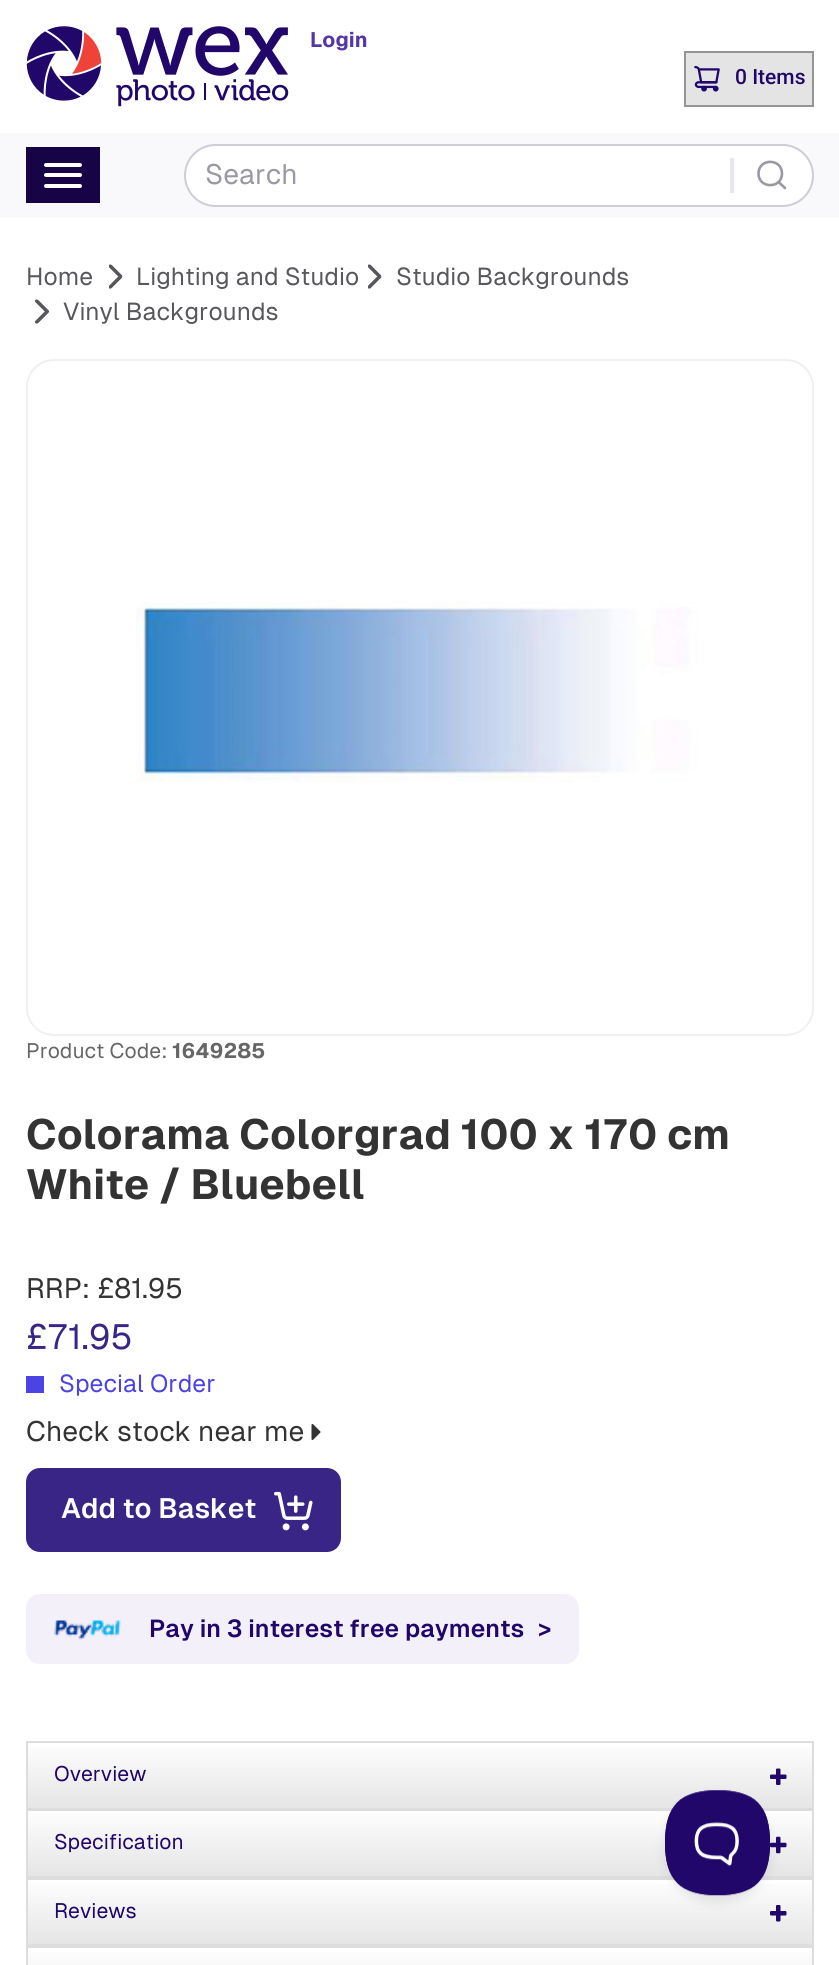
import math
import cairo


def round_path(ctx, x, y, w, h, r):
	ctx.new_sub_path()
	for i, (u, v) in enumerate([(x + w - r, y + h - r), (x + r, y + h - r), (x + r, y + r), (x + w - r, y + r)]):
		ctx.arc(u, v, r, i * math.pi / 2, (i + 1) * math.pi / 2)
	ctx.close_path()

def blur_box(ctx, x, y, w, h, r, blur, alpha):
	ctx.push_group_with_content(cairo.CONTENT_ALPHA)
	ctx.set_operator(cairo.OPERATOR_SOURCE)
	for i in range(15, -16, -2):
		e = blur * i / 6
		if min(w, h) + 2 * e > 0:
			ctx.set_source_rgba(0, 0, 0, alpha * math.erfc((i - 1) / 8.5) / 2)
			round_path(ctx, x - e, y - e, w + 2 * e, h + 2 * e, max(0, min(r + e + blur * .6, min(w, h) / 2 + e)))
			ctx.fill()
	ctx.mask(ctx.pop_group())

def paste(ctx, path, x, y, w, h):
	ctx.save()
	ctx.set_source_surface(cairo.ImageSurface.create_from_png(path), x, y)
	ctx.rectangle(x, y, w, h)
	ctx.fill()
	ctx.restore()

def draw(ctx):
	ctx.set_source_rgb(1, 1, 1)
	ctx.paint()
	paste(ctx, 'media/1.png', 26, 26, 263, 81)
	ctx.select_font_face('Geist', cairo.FONT_SLANT_NORMAL, cairo.FONT_WEIGHT_BOLD)
	ctx.set_font_size(21)
	ctx.set_source_rgb(0.337, 0.212, 0.639)
	ctx.move_to(310, 47)
	ctx.show_text('Login')
	ctx.set_source_rgb(0.976, 0.976, 0.984)
	ctx.rectangle(0, 133, 839, 84)
	ctx.fill()
	ctx.set_source_rgb(1, 1, 1)
	round_path(ctx, 185, 145, 628, 61, 30.5)
	ctx.fill_preserve()
	ctx.set_source_rgb(0.816, 0.8, 0.839)
	ctx.stroke()
	ctx.select_font_face('Geist')
	ctx.set_font_size(28)
	ctx.set_source_rgb(0.604, 0.596, 0.627)
	ctx.move_to(205, 184)
	ctx.show_text('Search')
	ctx.set_source_rgb(0.914, 0.902, 0.941)
	ctx.rectangle(730, 158, 4, 35)
	ctx.fill()
	ctx.new_path()
	ctx.move_to(785, 188)
	ctx.line_to(778.5, 182)
	ctx.move_to(782, 173.5)
	ctx.curve_to(782, 189, 758.5, 189, 758.5, 173.5)
	ctx.curve_to(758.5, 158, 782, 158, 782, 173.5)
	ctx.close_path()
	ctx.set_source_rgb(0.604, 0.596, 0.627)
	ctx.set_line_width(2.6)
	ctx.set_line_cap(cairo.LINE_CAP_ROUND)
	ctx.set_line_join(cairo.LINE_JOIN_ROUND)
	ctx.stroke()
	ctx.set_source_rgb(0.894, 0.894, 0.894)
	ctx.rectangle(685, 52, 128, 54)
	ctx.fill_preserve()
	ctx.set_source_rgb(0.584, 0.584, 0.584)
	ctx.set_line_width(2)
	ctx.set_line_cap(cairo.LINE_CAP_BUTT)
	ctx.set_line_join(cairo.LINE_JOIN_MITER)
	ctx.stroke()
	paste(ctx, 'media/2.png', 694, 65, 26, 27)
	ctx.select_font_face('Roboto Medium')
	ctx.set_font_size(21)
	ctx.set_source_rgb(0.129, 0.027, 0.416)
	ctx.move_to(735, 84)
	ctx.show_text('0 Items')
	ctx.set_source_rgb(0.086, 0.016, 0.275)
	ctx.rectangle(26, 147, 74, 56)
	ctx.fill()
	ctx.set_source_rgb(1, 1, 1)
	round_path(ctx, 44, 163, 38, 4, 2)
	ctx.fill()
	round_path(ctx, 44, 173, 38, 4, 2)
	ctx.fill()
	round_path(ctx, 44, 184, 38, 4, 2)
	ctx.fill()
	ctx.select_font_face('Geist')
	ctx.set_font_size(24.5)
	ctx.set_source_rgb(0.341, 0.341, 0.361)
	ctx.move_to(26, 285)
	ctx.show_text('Home')
	paste(ctx, 'media/3.png', 109, 264, 14, 25)
	ctx.move_to(136, 285)
	ctx.show_text('Lighting and Studio')
	paste(ctx, 'media/3.png', 368, 264, 14, 25)
	ctx.move_to(396, 285)
	ctx.show_text('Studio Backgrounds')
	paste(ctx, 'media/4.png', 35, 299, 14, 25)
	ctx.move_to(63, 320)
	ctx.show_text('Vinyl Backgrounds')
	round_path(ctx, 27, 360, 786, 675, 27)
	ctx.set_source_rgb(0.941, 0.941, 0.941)
	ctx.stroke()
	paste(ctx, 'media/5.png', 136, 601, 562, 181)
	ctx.set_font_size(21)
	ctx.set_source_rgb(0.4, 0.4, 0.4)
	ctx.move_to(26, 1058)
	ctx.show_text('Product Code:')
	ctx.select_font_face('Geist', cairo.FONT_SLANT_NORMAL, cairo.FONT_WEIGHT_BOLD)
	ctx.move_to(172, 1058)
	ctx.show_text('1649285')
	ctx.set_font_size(42)
	ctx.set_source_rgb(0.2, 0.2, 0.2)
	ctx.move_to(26, 1149)
	ctx.show_text('Colorama Colorgrad 100 x 170 cm')
	ctx.move_to(26, 1199)
	ctx.show_text('White / Bluebell')
	ctx.select_font_face('Geist')
	ctx.set_font_size(28)
	ctx.move_to(26, 1298)
	ctx.show_text('RRP: £81.95')
	ctx.set_font_size(35)
	ctx.set_source_rgb(0.22, 0.145, 0.525)
	ctx.move_to(26, 1349)
	ctx.show_text('£71.95')
	ctx.set_source_rgb(0.294, 0.263, 0.89)
	ctx.rectangle(26, 1376, 18, 17)
	ctx.fill()
	ctx.set_font_size(24.5)
	ctx.move_to(59, 1392)
	ctx.show_text('Special Order')
	ctx.set_font_size(28)
	ctx.set_source_rgb(0.2, 0.2, 0.2)
	ctx.move_to(26, 1441)
	ctx.show_text('Check stock near me')
	paste(ctx, 'media/6.png', 311, 1424, 10, 16)
	ctx.set_source_rgb(0.22, 0.145, 0.525)
	round_path(ctx, 26, 1468, 315, 84, 14)
	ctx.fill()
	ctx.select_font_face('Geist SemiBold')
	ctx.set_source_rgb(1, 1, 1)
	ctx.move_to(61, 1518)
	ctx.show_text('Add to Basket')
	paste(ctx, 'media/7.png', 274, 1491, 39, 40)
	ctx.set_source_rgb(0.953, 0.941, 0.98)
	round_path(ctx, 26, 1594, 553, 70, 14)
	ctx.fill()
	paste(ctx, 'media/8.png', 54, 1620, 67, 20)
	ctx.set_font_size(24.5)
	ctx.set_source_rgb(0.129, 0.027, 0.416)
	ctx.move_to(149, 1637)
	ctx.show_text('Pay in 3 interest free payments')
	ctx.move_to(538, 1637)
	ctx.show_text('>')
	ctx.rectangle(27, 1742, 786, 67)
	ctx.set_source_rgb(0.867, 0.867, 0.867)
	ctx.stroke()
	gradient = cairo.LinearGradient(420, 1743, 420, 1808)
	gradient.add_color_stop_rgba(0, 0.996, 0.996, 0.996, 1)
	gradient.add_color_stop_rgba(1, 0.898, 0.898, 0.898, 1)
	ctx.set_source(gradient)
	ctx.rectangle(28, 1747, 784, 61)
	ctx.fill()
	ctx.select_font_face('Geist')
	ctx.set_font_size(21)
	ctx.set_source_rgb(0.129, 0.027, 0.416)
	ctx.move_to(54, 1781)
	ctx.show_text('Overview')
	paste(ctx, 'media/9.png', 770, 1768, 17, 17)
	ctx.rectangle(27, 1811, 786, 66)
	ctx.set_source_rgb(0.867, 0.867, 0.867)
	ctx.stroke()
	gradient = cairo.LinearGradient(420, 1811, 420, 1876)
	gradient.add_color_stop_rgba(0, 0.996, 0.996, 0.996, 1)
	gradient.add_color_stop_rgba(1, 0.898, 0.898, 0.898, 1)
	ctx.set_source(gradient)
	ctx.rectangle(28, 1811, 784, 65)
	ctx.fill()
	ctx.set_source_rgb(0.129, 0.027, 0.416)
	ctx.move_to(54, 1849)
	ctx.show_text('Specification')
	paste(ctx, 'media/10.png', 770, 1836, 17, 18)
	ctx.rectangle(27, 1879, 786, 66)
	ctx.set_source_rgb(0.867, 0.867, 0.867)
	ctx.stroke()
	gradient = cairo.LinearGradient(420, 1880, 420, 1944)
	gradient.add_color_stop_rgba(0, 0.996, 0.996, 0.996, 1)
	gradient.add_color_stop_rgba(1, 0.898, 0.898, 0.898, 1)
	ctx.set_source(gradient)
	ctx.rectangle(28, 1884, 784, 60)
	ctx.fill()
	ctx.set_source_rgb(0.129, 0.027, 0.416)
	ctx.move_to(54, 1918)
	ctx.show_text('Reviews')
	paste(ctx, 'media/11.png', 770, 1905, 17, 17)
	ctx.rectangle(27, 1947, 786, 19)
	ctx.set_source_rgb(0.867, 0.867, 0.867)
	ctx.stroke()
	gradient = cairo.LinearGradient(420, 1948, 420, 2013)
	gradient.add_color_stop_rgba(0, 0.996, 0.996, 0.996, 1)
	gradient.add_color_stop_rgba(1, 0.898, 0.898, 0.898, 1)
	ctx.set_source(gradient)
	ctx.rectangle(28, 1952, 784, 13)
	ctx.fill()
	ctx.set_source_rgb(0, 0, 0)
	blur_box(ctx, 665, 1797, 105, 105, 52.5, 6, 0.1)
	paste(ctx, 'media/12.png', 665, 1790, 105, 106)


surface = cairo.ImageSurface(cairo.FORMAT_RGB24, 839, 1965)
ctx = cairo.Context(surface)
options = cairo.FontOptions()
options.set_hint_metrics(cairo.HINT_METRICS_OFF)
options.set_hint_style(cairo.HINT_STYLE_NONE)
ctx.set_font_options(options)
ctx.set_miter_limit(4)
draw(ctx)
surface.write_to_png('image.png')
